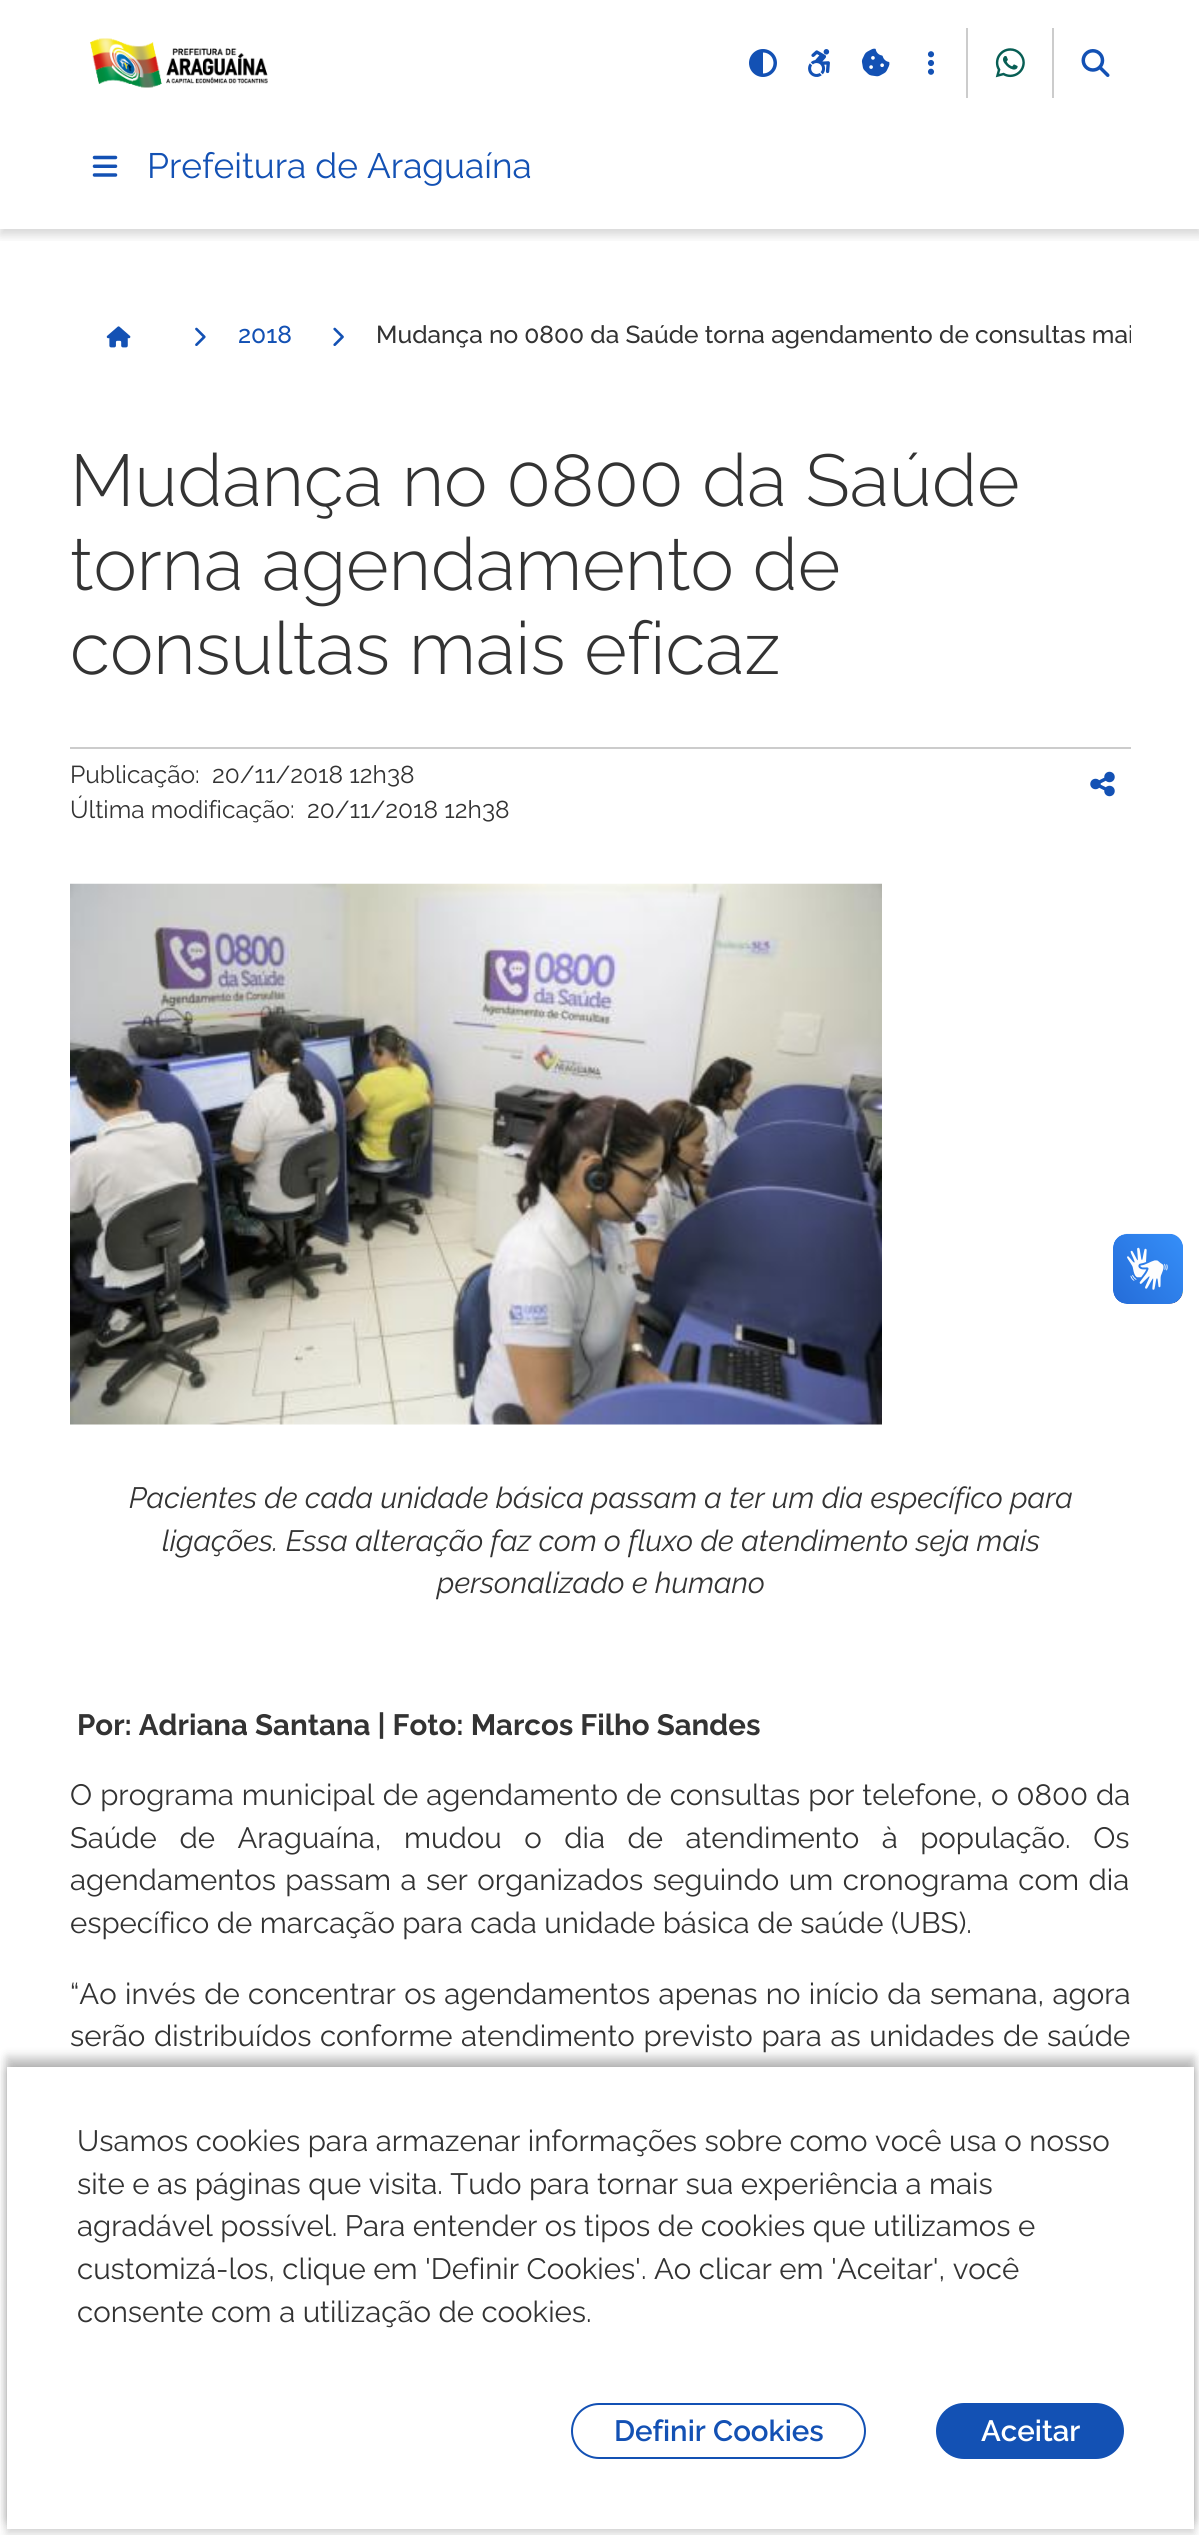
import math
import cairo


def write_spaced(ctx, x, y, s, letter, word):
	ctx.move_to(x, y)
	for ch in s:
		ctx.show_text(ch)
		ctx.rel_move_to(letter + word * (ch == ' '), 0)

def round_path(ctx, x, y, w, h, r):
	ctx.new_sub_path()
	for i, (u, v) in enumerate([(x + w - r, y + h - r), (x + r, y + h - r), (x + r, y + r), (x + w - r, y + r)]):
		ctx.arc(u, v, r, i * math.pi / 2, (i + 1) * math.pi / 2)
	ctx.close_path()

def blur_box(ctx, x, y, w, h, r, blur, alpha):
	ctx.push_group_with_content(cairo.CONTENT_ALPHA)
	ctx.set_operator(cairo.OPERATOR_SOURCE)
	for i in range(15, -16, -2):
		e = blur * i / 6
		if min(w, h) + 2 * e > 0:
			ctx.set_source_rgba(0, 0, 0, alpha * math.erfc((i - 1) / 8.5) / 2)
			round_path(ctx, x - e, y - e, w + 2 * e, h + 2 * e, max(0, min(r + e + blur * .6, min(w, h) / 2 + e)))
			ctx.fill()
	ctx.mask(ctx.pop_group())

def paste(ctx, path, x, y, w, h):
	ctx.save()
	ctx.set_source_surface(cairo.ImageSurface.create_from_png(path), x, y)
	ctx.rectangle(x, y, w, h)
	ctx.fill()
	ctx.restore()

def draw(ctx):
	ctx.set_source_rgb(1, 1, 1)
	ctx.paint()
	ctx.save()
	ctx.rectangle(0, 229, 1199, 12)
	ctx.clip()
	ctx.set_source_rgb(0, 0, 0)
	blur_box(ctx, 0, 5, 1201, 230, 0, 5, 0.16)
	ctx.restore()
	paste(ctx, 'media/1.png', 90, 38, 178, 50)
	paste(ctx, 'media/2.png', 749, 49, 28, 28)
	paste(ctx, 'media/3.png', 808, 49, 22, 28)
	paste(ctx, 'media/4.png', 861, 48, 29, 29)
	paste(ctx, 'media/5.png', 927, 51, 8, 24)
	ctx.set_source_rgb(0.8, 0.8, 0.8)
	ctx.rectangle(966, 28, 2, 70)
	ctx.fill()
	paste(ctx, 'media/6.png', 995, 48, 30, 30)
	ctx.rectangle(1052, 28, 2, 70)
	ctx.fill()
	paste(ctx, 'media/7.png', 1081, 49, 29, 28)
	paste(ctx, 'media/8.png', 92, 155, 26, 22)
	ctx.select_font_face('Raleway')
	ctx.set_font_size(35.25)
	ctx.set_source_rgb(0.075, 0.318, 0.706)
	ctx.move_to(147, 178)
	ctx.show_text('Prefeitura de Araguaína')
	paste(ctx, 'media/9.png', 106, 326, 25, 22)
	paste(ctx, 'media/10.png', 195, 327, 11, 19)
	ctx.select_font_face('Raleway Medium')
	ctx.set_font_size(24.5)
	ctx.move_to(238, 343)
	ctx.show_text('2018')
	paste(ctx, 'media/11.png', 333, 327, 11, 19)
	ctx.save()
	ctx.rectangle(70, 285, 1061, 98)
	ctx.clip()
	ctx.set_source_rgb(0.2, 0.2, 0.2)
	ctx.move_to(376, 343)
	ctx.show_text('Mudança no 0800 da Saúde torna agendamento de consultas mai')
	ctx.restore()
	ctx.set_source_rgb(0.8, 0.8, 0.8)
	ctx.rectangle(70, 747, 1061, 2)
	ctx.fill()
	ctx.select_font_face('Raleway Light')
	ctx.set_font_size(73.2)
	ctx.set_source_rgb(0.2, 0.2, 0.2)
	for x, y, s in [
		(70, 506, 'Mudança no 0800 da Saúde'),
		(70, 590, 'torna agendamento de'),
		(70, 674, 'consultas mais eficaz'),
	]:
		ctx.move_to(x, y)
		ctx.show_text(s)
	ctx.select_font_face('Raleway')
	ctx.set_font_size(24.5)
	for x, y, s in [
		(70, 783, 'Publicação:'),
		(212, 783, '20/11/2018 12h38'),
		(70, 818, 'Última modificação:'),
		(307, 818, '20/11/2018 12h38'),
	]:
		ctx.move_to(x, y)
		ctx.show_text(s)
	paste(ctx, 'media/12.png', 1090, 771, 25, 26)
	paste(ctx, 'media/13.png', 1113, 1233, 70, 71)
	paste(ctx, 'media/14.png', 1113, 1234, 70, 70)
	paste(ctx, 'media/15.png', 70, 883, 812, 542)
	ctx.select_font_face('Raleway', cairo.FONT_SLANT_ITALIC)
	ctx.set_font_size(29.4)
	for x, y, s in [
		(129, 1508, 'Pacientes de cada unidade básica passam a ter um dia específico para'),
		(162, 1551, 'ligações. Essa alteração faz com o fluxo de atendimento seja mais'),
		(437, 1593, 'personalizado e humano'),
	]:
		ctx.move_to(x, y)
		ctx.show_text(s)
	ctx.select_font_face('Raleway', cairo.FONT_SLANT_NORMAL, cairo.FONT_WEIGHT_BOLD)
	ctx.move_to(77, 1735)
	ctx.show_text('Por: Adriana Santana | Foto: Marcos Filho Sandes')
	ctx.select_font_face('Raleway')
	write_spaced(ctx, 70, 1805, 'O programa municipal de agendamento de consultas por telefone, o 0800 da', 0, 0.6)
	write_spaced(ctx, 70, 1848, 'Saúde de Araguaína, mudou o dia de atendimento à população. Os', 0, 15)
	write_spaced(ctx, 70, 1890, 'agendamentos passam a ser organizados seguindo um cronograma com dia', 0, 2)
	ctx.move_to(70, 1933)
	ctx.show_text('específico de marcação para cada unidade básica de saúde (UBS).')
	write_spaced(ctx, 70, 2004, '“Ao invés de concentrar os agendamentos apenas no início da semana, agora', 0, 0.9)
	write_spaced(ctx, 70, 2046, 'serão distribuídos conforme atendimento previsto para as unidades de saúde', 0, 1.1)
	ctx.set_source_rgb(0, 0, 0)
	blur_box(ctx, 7, 2056, 1187, 462, 0, 5, 0.16)
	blur_box(ctx, 7, 2072, 1187, 462, 0, 5, 0.16)
	blur_box(ctx, 7, 2062, 1187, 462, 0, 5, 0.16)
	ctx.set_source_rgb(1, 1, 1)
	ctx.rectangle(7, 2067, 1187, 462)
	ctx.fill()
	ctx.set_source_rgb(0.2, 0.2, 0.2)
	for x, y, s in [
		(77, 2151, 'Usamos cookies para armazenar informações sobre como você usa o nosso'),
		(77, 2194, 'site e as páginas que visita. Tudo para tornar sua experiência a mais'),
		(77, 2236, 'agradável possível. Para entender os tipos de cookies que utilizamos e'),
		(77, 2279, 'customizá-los, clique em \'Definir Cookies\'. Ao clicar em \'Aceitar\', você'),
		(77, 2322, 'consente com a utilização de cookies.'),
	]:
		ctx.move_to(x, y)
		ctx.show_text(s)
	round_path(ctx, 572, 2404, 293, 54, 27)
	ctx.set_source_rgb(0.075, 0.318, 0.706)
	ctx.stroke()
	ctx.select_font_face('Raleway SemiBold')
	ctx.move_to(614, 2441)
	ctx.show_text('Definir Cookies')
	round_path(ctx, 936, 2403, 188, 56, 28)
	ctx.fill()
	ctx.set_source_rgb(1, 1, 1)
	ctx.move_to(981, 2441)
	ctx.show_text('Aceitar')


surface = cairo.ImageSurface(cairo.FORMAT_RGB24, 1199, 2535)
ctx = cairo.Context(surface)
options = cairo.FontOptions()
options.set_hint_metrics(cairo.HINT_METRICS_OFF)
options.set_hint_style(cairo.HINT_STYLE_NONE)
ctx.set_font_options(options)
ctx.set_miter_limit(4)
draw(ctx)
surface.write_to_png('image.png')
